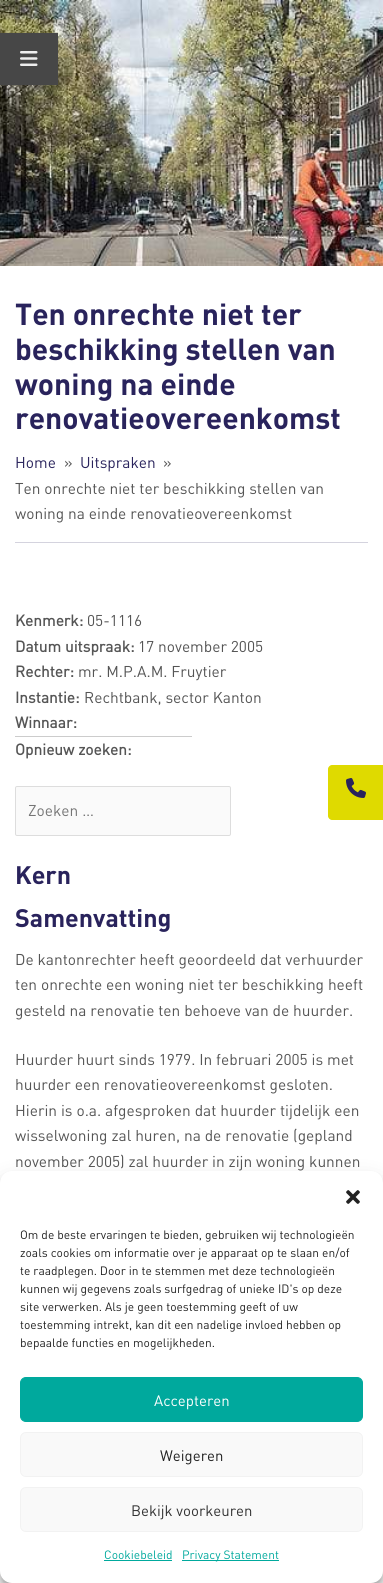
import math
import cairo


def round_path(ctx, x, y, w, h, r):
	ctx.new_sub_path()
	for i, (u, v) in enumerate([(x + w - r, y + h - r), (x + r, y + h - r), (x + r, y + r), (x + w - r, y + r)]):
		ctx.arc(u, v, r, i * math.pi / 2, (i + 1) * math.pi / 2)
	ctx.close_path()

def blur_box(ctx, x, y, w, h, r, blur, alpha):
	ctx.push_group_with_content(cairo.CONTENT_ALPHA)
	ctx.set_operator(cairo.OPERATOR_SOURCE)
	for i in range(15, -16, -2):
		e = blur * i / 6
		if min(w, h) + 2 * e > 0:
			ctx.set_source_rgba(0, 0, 0, alpha * math.erfc((i - 1) / 8.5) / 2)
			round_path(ctx, x - e, y - e, w + 2 * e, h + 2 * e, max(0, min(r + e + blur * .6, min(w, h) / 2 + e)))
			ctx.fill()
	ctx.mask(ctx.pop_group())

def paste(ctx, path, x, y, w, h):
	ctx.save()
	ctx.set_source_surface(cairo.ImageSurface.create_from_png(path), x, y)
	ctx.rectangle(x, y, w, h)
	ctx.fill()
	ctx.restore()

def draw(ctx):
	ctx.set_source_rgb(1, 1, 1)
	ctx.paint()
	paste(ctx, 'media/2.png', 0, 0, 383, 266)
	ctx.set_source_rgb(0.278, 0.278, 0.278)
	ctx.rectangle(0, 33, 58, 52)
	ctx.fill()
	paste(ctx, 'media/1.png', 20, 51, 18, 15)
	ctx.select_font_face('DIN', cairo.FONT_SLANT_NORMAL, cairo.FONT_WEIGHT_BOLD)
	ctx.set_font_size(30)
	ctx.set_source_rgb(0.161, 0.137, 0.361)
	for x, y, s in [
		(15, 325, 'Ten onrechte niet ter'),
		(15, 360, 'beschikking stellen van'),
		(15, 395, 'woning na einde'),
		(15, 429, 'renovatieovereenkomst'),
	]:
		ctx.move_to(x, y)
		ctx.show_text(s)
	ctx.select_font_face('DIN')
	ctx.set_font_size(15.5)
	ctx.move_to(15, 468)
	ctx.show_text('Home')
	ctx.set_source_rgb(0.333, 0.333, 0.333)
	ctx.move_to(64, 468)
	ctx.show_text('»')
	ctx.set_source_rgb(0.161, 0.137, 0.361)
	ctx.move_to(80, 468)
	ctx.show_text('Uitspraken')
	ctx.set_source_rgb(0.333, 0.333, 0.333)
	for x, y, s in [
		(163, 468, '»'),
		(15, 494, 'Ten onrechte niet ter beschikking stellen van'),
		(15, 519, 'woning na einde renovatieovereenkomst'),
	]:
		ctx.move_to(x, y)
		ctx.show_text(s)
	ctx.set_source_rgb(0.831, 0.827, 0.871)
	ctx.rectangle(15, 542, 353, 1)
	ctx.fill()
	ctx.select_font_face('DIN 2', cairo.FONT_SLANT_NORMAL, cairo.FONT_WEIGHT_BOLD)
	ctx.set_source_rgb(0.333, 0.333, 0.333)
	ctx.move_to(15, 626)
	ctx.show_text('Kenmerk:')
	ctx.select_font_face('DIN')
	ctx.move_to(87, 626)
	ctx.show_text('05-1116')
	ctx.select_font_face('DIN 2', cairo.FONT_SLANT_NORMAL, cairo.FONT_WEIGHT_BOLD)
	ctx.move_to(15, 652)
	ctx.show_text('Datum uitspraak:')
	ctx.select_font_face('DIN')
	ctx.move_to(138, 652)
	ctx.show_text('17 november 2005')
	ctx.select_font_face('DIN 2', cairo.FONT_SLANT_NORMAL, cairo.FONT_WEIGHT_BOLD)
	ctx.move_to(15, 677)
	ctx.show_text('Rechter:')
	ctx.select_font_face('DIN')
	ctx.move_to(78, 677)
	ctx.show_text('mr. M.P.A.M. Fruytier')
	ctx.select_font_face('DIN 2', cairo.FONT_SLANT_NORMAL, cairo.FONT_WEIGHT_BOLD)
	ctx.move_to(15, 703)
	ctx.show_text('Instantie:')
	ctx.select_font_face('DIN')
	ctx.move_to(84, 703)
	ctx.show_text('Rechtbank, sector Kanton')
	ctx.select_font_face('DIN 2', cairo.FONT_SLANT_NORMAL, cairo.FONT_WEIGHT_BOLD)
	ctx.move_to(15, 728)
	ctx.show_text('Winnaar:')
	ctx.set_source_rgb(0.8, 0.8, 0.8)
	ctx.rectangle(15, 736, 177, 1)
	ctx.fill()
	ctx.set_source_rgb(0.333, 0.333, 0.333)
	ctx.move_to(15, 755)
	ctx.show_text('Opnieuw zoeken:')
	ctx.set_source_rgb(0.98, 0.98, 0.98)
	round_path(ctx, 15.5, 786.5, 215, 49, 1.5)
	ctx.fill_preserve()
	ctx.set_source_rgb(0.867, 0.867, 0.867)
	ctx.set_line_width(1)
	ctx.stroke()
	ctx.select_font_face('DIN')
	ctx.set_source_rgb(0.459, 0.459, 0.459)
	ctx.move_to(28, 816)
	ctx.show_text('Zoeken …')
	ctx.select_font_face('DIN', cairo.FONT_SLANT_NORMAL, cairo.FONT_WEIGHT_BOLD)
	ctx.set_font_size(25)
	ctx.set_source_rgb(0.161, 0.137, 0.361)
	ctx.move_to(15, 884)
	ctx.show_text('Kern')
	ctx.move_to(15, 927)
	ctx.show_text('Samenvatting')
	ctx.select_font_face('DIN')
	ctx.set_font_size(15.5)
	ctx.set_source_rgb(0.333, 0.333, 0.333)
	for x, y, s in [
		(15, 965, 'De kantonrechter heeft geoordeeld dat verhuurder'),
		(15, 990, 'ten onrechte een woning niet ter beschikking heeft'),
		(15, 1016, 'gesteld na renovatie ten behoeve van de huurder.'),
		(15, 1065, 'Huurder huurt sinds 1979. In februari 2005 is met'),
		(15, 1090, 'huurder een renovatieovereenkomst gesloten.'),
		(15, 1116, 'Hierin is o.a. afgesproken dat huurder tijdelijk een'),
		(15, 1141, 'wisselwoning zal huren, na de renovatie (gepland'),
		(15, 1167, 'november 2005) zal huurder in zijn woning kunnen'),
	]:
		ctx.move_to(x, y)
		ctx.show_text(s)
	ctx.set_source_rgb(0.875, 0.855, 0)
	ctx.new_path()
	ctx.move_to(332, 765)
	ctx.line_to(383, 765)
	ctx.line_to(383, 820)
	ctx.line_to(332, 820)
	ctx.curve_to(330, 820, 328, 818, 328, 816)
	ctx.line_to(328, 769)
	ctx.curve_to(328, 767, 330, 765, 332, 765)
	ctx.close_path()
	ctx.fill()
	paste(ctx, 'media/3.png', 346, 778, 20, 20)
	ctx.set_source_rgb(0, 0, 0)
	blur_box(ctx, 0, 1177, 383, 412, 12, 3, 0.23)
	blur_box(ctx, 0, 1181, 383, 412, 12, 10, 0.19)
	ctx.set_source_rgb(1, 1, 1)
	round_path(ctx, 0, 1171, 383, 412, 12)
	ctx.fill()
	paste(ctx, 'media/4.png', 346, 1190, 14, 14)
	ctx.set_font_size(12)
	ctx.set_source_rgb(0.133, 0.133, 0.133)
	for x, y, s in [
		(20, 1239, 'Om de beste ervaringen te bieden, gebruiken wij technologieën'),
		(20, 1257, 'zoals cookies om informatie over je apparaat op te slaan en/of'),
		(20, 1275, 'te raadplegen. Door in te stemmen met deze technologieën'),
		(20, 1293, 'kunnen wij gegevens zoals surfgedrag of unieke ID\'s op deze'),
		(20, 1311, 'site verwerken. Als je geen toestemming geeft of uw'),
		(20, 1329, 'toestemming intrekt, kan dit een nadelige invloed hebben op'),
		(20, 1347, 'bepaalde functies en mogelijkheden.'),
	]:
		ctx.move_to(x, y)
		ctx.show_text(s)
	ctx.set_source_rgb(0, 0.663, 0.616)
	round_path(ctx, 20.5, 1377.5, 342, 44, 5.5)
	ctx.fill_preserve()
	ctx.stroke()
	ctx.set_font_size(15)
	ctx.set_source_rgb(1, 1, 1)
	ctx.move_to(154, 1406)
	ctx.show_text('Accepteren')
	ctx.set_source_rgb(0.976, 0.976, 0.976)
	round_path(ctx, 20.5, 1432.5, 342, 44, 5.5)
	ctx.fill_preserve()
	ctx.set_source_rgb(0.949, 0.949, 0.949)
	ctx.stroke()
	ctx.set_source_rgb(0.133, 0.133, 0.133)
	ctx.move_to(160, 1461)
	ctx.show_text('Weigeren')
	ctx.set_source_rgb(0.976, 0.976, 0.976)
	round_path(ctx, 20.5, 1487.5, 342, 44, 5.5)
	ctx.fill_preserve()
	ctx.set_source_rgb(0.949, 0.949, 0.949)
	ctx.stroke()
	ctx.set_source_rgb(0.2, 0.2, 0.2)
	ctx.move_to(131, 1516)
	ctx.show_text('Bekijk voorkeuren')
	ctx.set_font_size(12)
	ctx.set_source_rgb(0, 0.663, 0.616)
	ctx.move_to(104, 1559)
	ctx.show_text('Cookiebeleid')
	ctx.rectangle(104, 1560, 68, 1)
	ctx.fill()
	ctx.rectangle(182, 1560, 97, 1)
	ctx.fill()
	ctx.move_to(182, 1559)
	ctx.show_text('Privacy Statement')


surface = cairo.ImageSurface(cairo.FORMAT_RGB24, 383, 1583)
ctx = cairo.Context(surface)
options = cairo.FontOptions()
options.set_hint_metrics(cairo.HINT_METRICS_OFF)
options.set_hint_style(cairo.HINT_STYLE_NONE)
ctx.set_font_options(options)
ctx.set_miter_limit(4)
draw(ctx)
surface.write_to_png('image.png')
